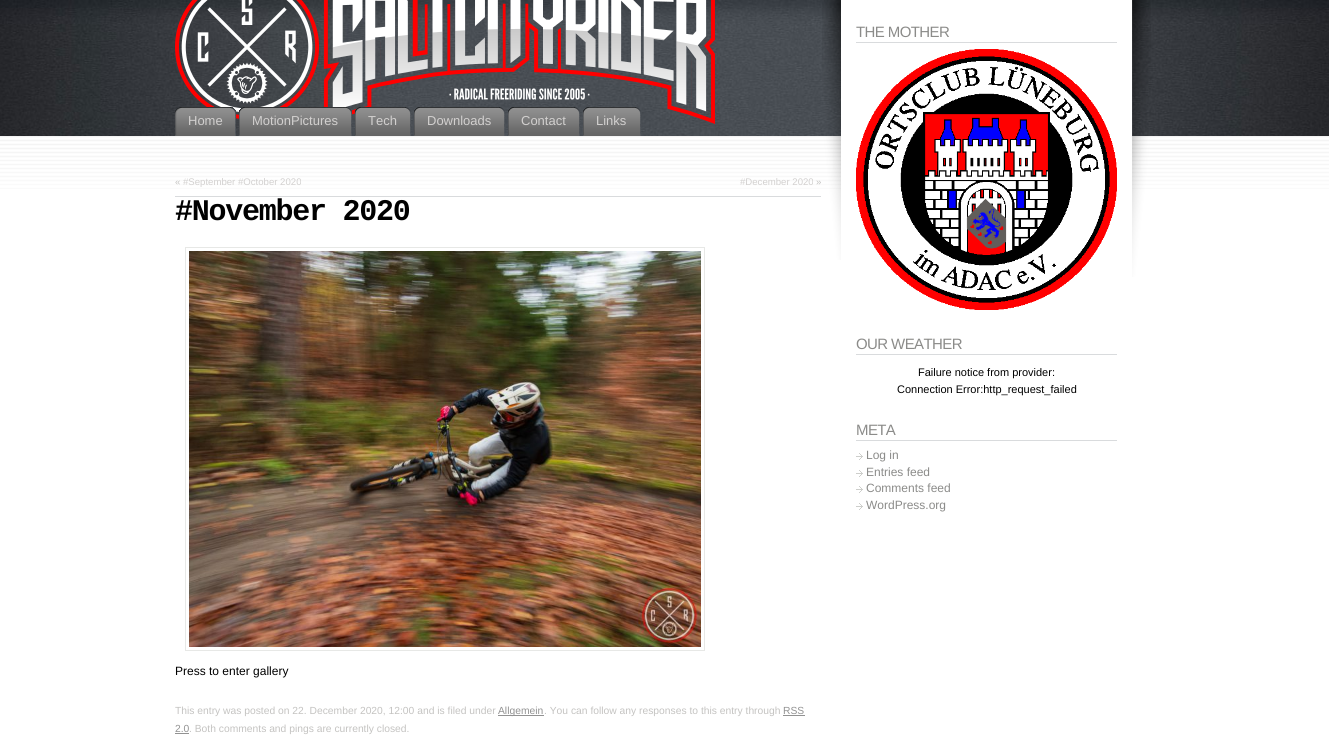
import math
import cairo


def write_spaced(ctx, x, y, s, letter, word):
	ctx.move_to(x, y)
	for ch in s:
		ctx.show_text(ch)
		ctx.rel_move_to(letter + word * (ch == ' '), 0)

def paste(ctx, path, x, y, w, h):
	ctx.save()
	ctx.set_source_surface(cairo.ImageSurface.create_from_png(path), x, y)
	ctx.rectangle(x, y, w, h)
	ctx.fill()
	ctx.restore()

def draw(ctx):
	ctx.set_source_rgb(1, 1, 1)
	ctx.paint()
	paste(ctx, 'media/1.png', 0, 136, 1329, 53)
	paste(ctx, 'media/2.png', 0, 0, 1329, 136)
	paste(ctx, 'media/3.png', 175, 0, 540, 124)
	paste(ctx, 'media/4.png', 175, 107, 11, 29)
	paste(ctx, 'media/5.png', 186, 107, 50, 29)
	ctx.select_font_face('Liberation Sans')
	ctx.set_font_size(13)
	ctx.set_source_rgb(0.824, 0.816, 0.812)
	ctx.move_to(188, 125)
	ctx.show_text('Home')
	paste(ctx, 'media/6.png', 239, 107, 10, 29)
	paste(ctx, 'media/7.png', 249, 107, 103, 29)
	ctx.move_to(252, 125)
	ctx.show_text('MotionPictures')
	paste(ctx, 'media/8.png', 355, 107, 10, 29)
	paste(ctx, 'media/9.png', 365, 107, 46, 29)
	ctx.move_to(368, 125)
	ctx.show_text('Tech')
	paste(ctx, 'media/10.png', 414, 107, 10, 29)
	paste(ctx, 'media/11.png', 424, 107, 81, 29)
	ctx.move_to(427, 125)
	ctx.show_text('Downloads')
	paste(ctx, 'media/12.png', 508, 107, 10, 29)
	paste(ctx, 'media/13.png', 518, 107, 62, 29)
	ctx.move_to(521, 125)
	ctx.show_text('Contact')
	paste(ctx, 'media/14.png', 583, 107, 10, 29)
	paste(ctx, 'media/15.png', 593, 107, 48, 29)
	ctx.move_to(596, 125)
	ctx.show_text('Links')
	ctx.set_font_size(9.6)
	ctx.set_source_rgb(0.769, 0.765, 0.757)
	ctx.move_to(175, 185)
	ctx.show_text('«')
	ctx.set_source_rgb(0.824, 0.816, 0.812)
	ctx.move_to(183, 185)
	ctx.show_text('#September #October 2020')
	ctx.move_to(740, 185)
	ctx.show_text('#December 2020')
	ctx.set_source_rgb(0.769, 0.765, 0.757)
	ctx.move_to(816, 185)
	ctx.show_text('»')
	ctx.set_source_rgb(0.851, 0.859, 0.867)
	ctx.rectangle(175, 196, 646, 1)
	ctx.fill()
	ctx.select_font_face('Liberation Mono', cairo.FONT_SLANT_NORMAL, cairo.FONT_WEIGHT_BOLD)
	ctx.set_font_size(30)
	ctx.set_source_rgb(0, 0, 0)
	write_spaced(ctx, 175, 220, '#November 2020', -1.25, 0)
	ctx.rectangle(185.5, 247.5, 519, 403)
	ctx.set_source_rgb(0.906, 0.91, 0.902)
	ctx.set_line_width(1)
	ctx.stroke()
	paste(ctx, 'media/16.png', 189, 251, 512, 396)
	ctx.select_font_face('Liberation Sans')
	ctx.set_font_size(12)
	ctx.set_source_rgb(0, 0, 0)
	ctx.move_to(175, 675)
	ctx.show_text('Press to enter gallery')
	ctx.set_font_size(10.3)
	ctx.set_source_rgb(0.769, 0.765, 0.757)
	ctx.move_to(175, 714)
	ctx.show_text('This entry was posted on 22. December 2020, 12:00 and is filed under')
	ctx.set_source_rgb(0.573, 0.573, 0.573)
	ctx.rectangle(498, 715, 46, 1)
	ctx.fill()
	ctx.move_to(498, 714)
	ctx.show_text('Allgemein')
	ctx.set_source_rgb(0.769, 0.765, 0.757)
	ctx.move_to(544, 714)
	ctx.show_text('. You can follow any responses to this entry through')
	ctx.set_source_rgb(0.573, 0.573, 0.573)
	ctx.move_to(783, 714)
	ctx.show_text('RSS')
	ctx.rectangle(783, 715, 22, 1)
	ctx.fill()
	ctx.move_to(175, 732)
	ctx.show_text('2.0')
	ctx.set_source_rgb(0.769, 0.765, 0.757)
	ctx.move_to(189, 732)
	ctx.show_text('. Both comments and pings are currently closed.')
	ctx.set_source_rgb(0.573, 0.573, 0.573)
	ctx.rectangle(175, 733, 14, 1)
	ctx.fill()
	paste(ctx, 'media/17.png', 822, 0, 31, 260)
	paste(ctx, 'media/18.png', 853, 0, 298, 277)
	ctx.set_source_rgb(0.851, 0.859, 0.867)
	ctx.rectangle(856, 42, 261, 1)
	ctx.fill()
	ctx.set_font_size(15)
	ctx.set_source_rgb(0.545, 0.545, 0.537)
	write_spaced(ctx, 856, 37, 'THE MOTHER', -0.6, 0)
	paste(ctx, 'media/19.png', 856, 49, 261, 261)
	ctx.set_source_rgb(0.851, 0.859, 0.867)
	ctx.rectangle(856, 354, 261, 1)
	ctx.fill()
	ctx.set_source_rgb(0.545, 0.545, 0.537)
	write_spaced(ctx, 856, 349, 'OUR WEATHER', -0.6, 0)
	ctx.set_font_size(11)
	ctx.set_source_rgb(0, 0, 0)
	ctx.move_to(918, 376)
	ctx.show_text('Failure notice from provider:')
	ctx.move_to(897, 393)
	ctx.show_text('Connection Error:http_request_failed')
	ctx.set_source_rgb(0.851, 0.859, 0.867)
	ctx.rectangle(856, 440, 261, 1)
	ctx.fill()
	ctx.set_font_size(15)
	ctx.set_source_rgb(0.545, 0.545, 0.537)
	write_spaced(ctx, 856, 435, 'META', -0.6, 0)
	paste(ctx, 'media/20.png', 856, 453, 7, 7)
	ctx.set_font_size(12)
	ctx.move_to(866, 459)
	ctx.show_text('Log in')
	paste(ctx, 'media/20.png', 856, 470, 7, 7)
	ctx.move_to(866, 476)
	ctx.show_text('Entries feed')
	paste(ctx, 'media/20.png', 856, 486, 7, 7)
	ctx.move_to(866, 492)
	ctx.show_text('Comments feed')
	paste(ctx, 'media/20.png', 856, 503, 7, 7)
	ctx.move_to(866, 509)
	ctx.show_text('WordPress.org')


surface = cairo.ImageSurface(cairo.FORMAT_RGB24, 1329, 736)
ctx = cairo.Context(surface)
options = cairo.FontOptions()
options.set_hint_metrics(cairo.HINT_METRICS_OFF)
options.set_hint_style(cairo.HINT_STYLE_NONE)
ctx.set_font_options(options)
ctx.set_miter_limit(4)
draw(ctx)
surface.write_to_png('image.png')
